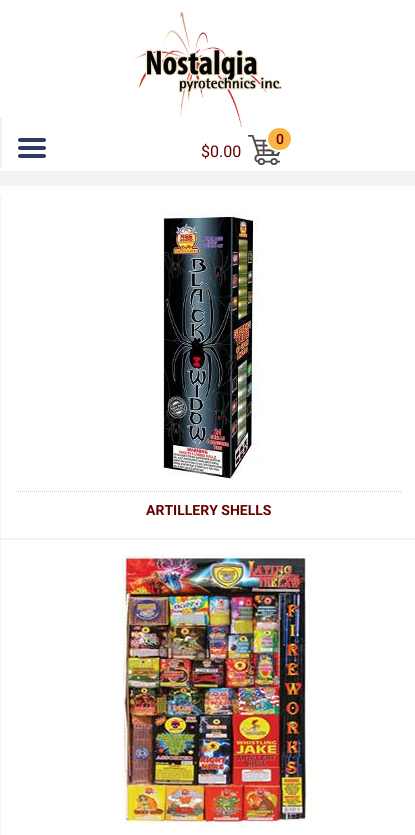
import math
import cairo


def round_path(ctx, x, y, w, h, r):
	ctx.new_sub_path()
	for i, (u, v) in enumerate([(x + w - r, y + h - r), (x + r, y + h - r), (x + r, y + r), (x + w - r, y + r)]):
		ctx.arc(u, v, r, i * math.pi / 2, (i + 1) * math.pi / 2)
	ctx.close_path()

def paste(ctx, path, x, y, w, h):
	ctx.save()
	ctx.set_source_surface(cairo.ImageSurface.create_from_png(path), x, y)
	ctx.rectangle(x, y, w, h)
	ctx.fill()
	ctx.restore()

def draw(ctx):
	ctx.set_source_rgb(1, 1, 1)
	ctx.paint()
	paste(ctx, 'media/1.png', 133, 12, 149, 118)
	ctx.set_source_rgb(0.949, 0.949, 0.949)
	ctx.rectangle(0, 118, 2, 50)
	ctx.fill()
	ctx.set_source_rgb(0.161, 0.239, 0.376)
	round_path(ctx, 18, 138, 28, 4, 2)
	ctx.fill()
	round_path(ctx, 18, 146, 28, 4, 2)
	ctx.fill()
	round_path(ctx, 18, 154, 28, 4, 2)
	ctx.fill()
	paste(ctx, 'media/2.png', 248, 135, 33, 30)
	ctx.set_source_rgb(0.984, 0.706, 0.267)
	round_path(ctx, 267, 127, 25, 24, 12)
	ctx.fill_preserve()
	ctx.set_source_rgb(1, 1, 1)
	ctx.stroke()
	ctx.select_font_face('Roboto Medium')
	ctx.set_font_size(14)
	ctx.set_source_rgb(0.396, 0.004, 0.004)
	ctx.move_to(276, 144)
	ctx.show_text('0')
	ctx.select_font_face('Roboto')
	ctx.set_font_size(16)
	ctx.move_to(201, 157)
	ctx.show_text('$0.00')
	ctx.set_source_rgb(0.953, 0.953, 0.953)
	ctx.rectangle(0, 171, 415, 15)
	ctx.rectangle(0, 538, 415, 2)
	ctx.rectangle(0, 196, 1, 639)
	ctx.fill()
	paste(ctx, 'media/3.png', 162, 211, 103, 270)
	ctx.new_path()
	ctx.move_to(16, 491.5)
	ctx.line_to(401, 491.5)
	ctx.set_source_rgb(0.8, 0.8, 0.8)
	ctx.set_line_width(1)
	ctx.set_dash([1, 1])
	ctx.stroke()
	ctx.select_font_face('Roboto', cairo.FONT_SLANT_NORMAL, cairo.FONT_WEIGHT_BOLD)
	ctx.set_font_size(14)
	ctx.set_source_rgb(0.396, 0.004, 0.004)
	ctx.move_to(146, 515)
	ctx.show_text('ARTILLERY SHELLS')
	paste(ctx, 'media/4.png', 121, 555, 194, 270)


surface = cairo.ImageSurface(cairo.FORMAT_RGB24, 415, 835)
ctx = cairo.Context(surface)
options = cairo.FontOptions()
options.set_hint_metrics(cairo.HINT_METRICS_OFF)
options.set_hint_style(cairo.HINT_STYLE_NONE)
ctx.set_font_options(options)
ctx.set_miter_limit(4)
draw(ctx)
surface.write_to_png('image.png')
